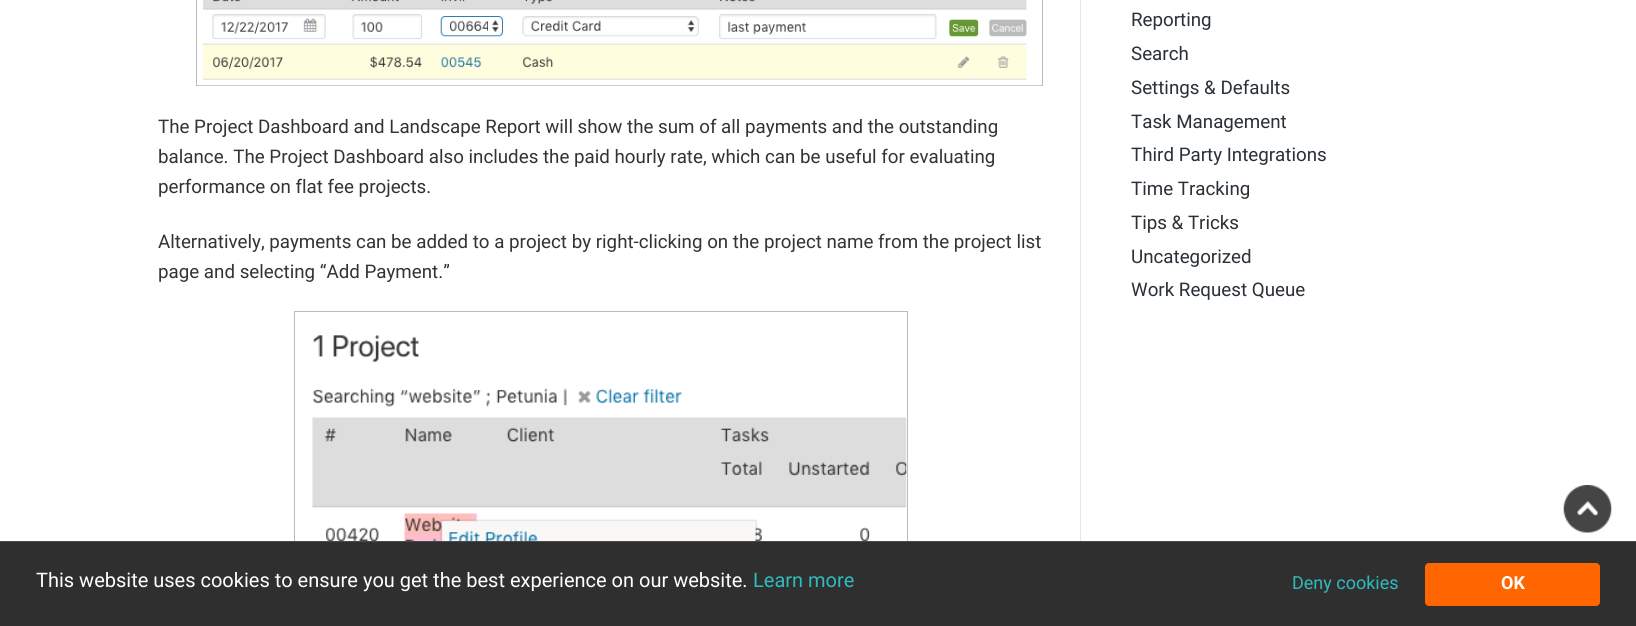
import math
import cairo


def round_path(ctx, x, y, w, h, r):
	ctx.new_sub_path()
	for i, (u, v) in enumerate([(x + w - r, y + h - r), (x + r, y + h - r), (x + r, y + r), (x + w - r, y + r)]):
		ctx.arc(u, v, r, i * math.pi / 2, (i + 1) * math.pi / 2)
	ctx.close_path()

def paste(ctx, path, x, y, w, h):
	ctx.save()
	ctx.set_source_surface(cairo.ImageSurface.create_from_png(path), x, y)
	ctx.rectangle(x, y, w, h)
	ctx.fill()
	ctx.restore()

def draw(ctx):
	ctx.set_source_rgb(1, 1, 1)
	ctx.paint()
	ctx.set_source_rgb(0.902, 0.902, 0.902)
	ctx.rectangle(1080, 0, 1, 541)
	ctx.fill()
	ctx.rectangle(196.5, -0.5, 846, 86)
	ctx.set_source_rgb(0.733, 0.733, 0.733)
	ctx.set_line_width(1)
	ctx.stroke()
	paste(ctx, 'media/1.png', 197, 0, 845, 86)
	ctx.select_font_face('Roboto')
	ctx.set_font_size(18.75)
	ctx.set_source_rgb(0.2, 0.2, 0.2)
	for x, y, s in [
		(158, 133, 'The Project Dashboard and Landscape Report will show the sum of all payments and the outstanding'),
		(158, 163, 'balance. The Project Dashboard also includes the paid hourly rate, which can be useful for evaluating'),
		(158, 193, 'performance on flat fee projects.'),
		(158, 248, 'Alternatively, payments can be added to a project by right-clicking on the project name from the project list'),
		(158, 278, 'page and selecting “Add Payment.”'),
	]:
		ctx.move_to(x, y)
		ctx.show_text(s)
	ctx.rectangle(294.5, 311.5, 613, 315)
	ctx.set_source_rgb(0.733, 0.733, 0.733)
	ctx.stroke()
	paste(ctx, 'media/2.png', 312, 335, 595, 206)
	ctx.set_source_rgb(0.165, 0.188, 0.216)
	for x, y, s in [
		(1131, 26, 'Reporting'),
		(1131, 60, 'Search'),
		(1131, 94, 'Settings & Defaults'),
		(1131, 128, 'Task Management'),
		(1131, 161, 'Third Party Integrations'),
		(1131, 195, 'Time Tracking'),
		(1131, 229, 'Tips & Tricks'),
		(1131, 263, 'Uncategorized'),
		(1131, 296, 'Work Request Queue'),
	]:
		ctx.move_to(x, y)
		ctx.show_text(s)
	paste(ctx, 'media/3.png', 1563, 485, 49, 48)
	ctx.set_source_rgb(0.184, 0.184, 0.184)
	ctx.rectangle(0, 542, 1636, 84)
	ctx.fill()
	ctx.set_source_rgb(0.29, 0.29, 0.29)
	ctx.rectangle(0, 541, 1636, 1)
	ctx.fill()
	ctx.set_font_size(20)
	ctx.set_source_rgb(1, 1, 1)
	ctx.move_to(36, 587)
	ctx.show_text('This website uses cookies to ensure you get the best experience on our website.')
	ctx.set_source_rgb(0.184, 0.733, 0.733)
	ctx.move_to(753, 587)
	ctx.show_text('Learn more')
	ctx.set_font_size(18)
	ctx.move_to(1292, 589)
	ctx.show_text('Deny cookies')
	ctx.set_source_rgb(1, 0.4, 0)
	round_path(ctx, 1425, 563, 175, 43, 4)
	ctx.fill()
	ctx.select_font_face('Roboto', cairo.FONT_SLANT_NORMAL, cairo.FONT_WEIGHT_BOLD)
	ctx.set_source_rgb(1, 1, 1)
	ctx.move_to(1501, 589)
	ctx.show_text('OK')


surface = cairo.ImageSurface(cairo.FORMAT_RGB24, 1636, 626)
ctx = cairo.Context(surface)
options = cairo.FontOptions()
options.set_hint_metrics(cairo.HINT_METRICS_OFF)
options.set_hint_style(cairo.HINT_STYLE_NONE)
ctx.set_font_options(options)
ctx.set_miter_limit(4)
draw(ctx)
surface.write_to_png('image.png')
